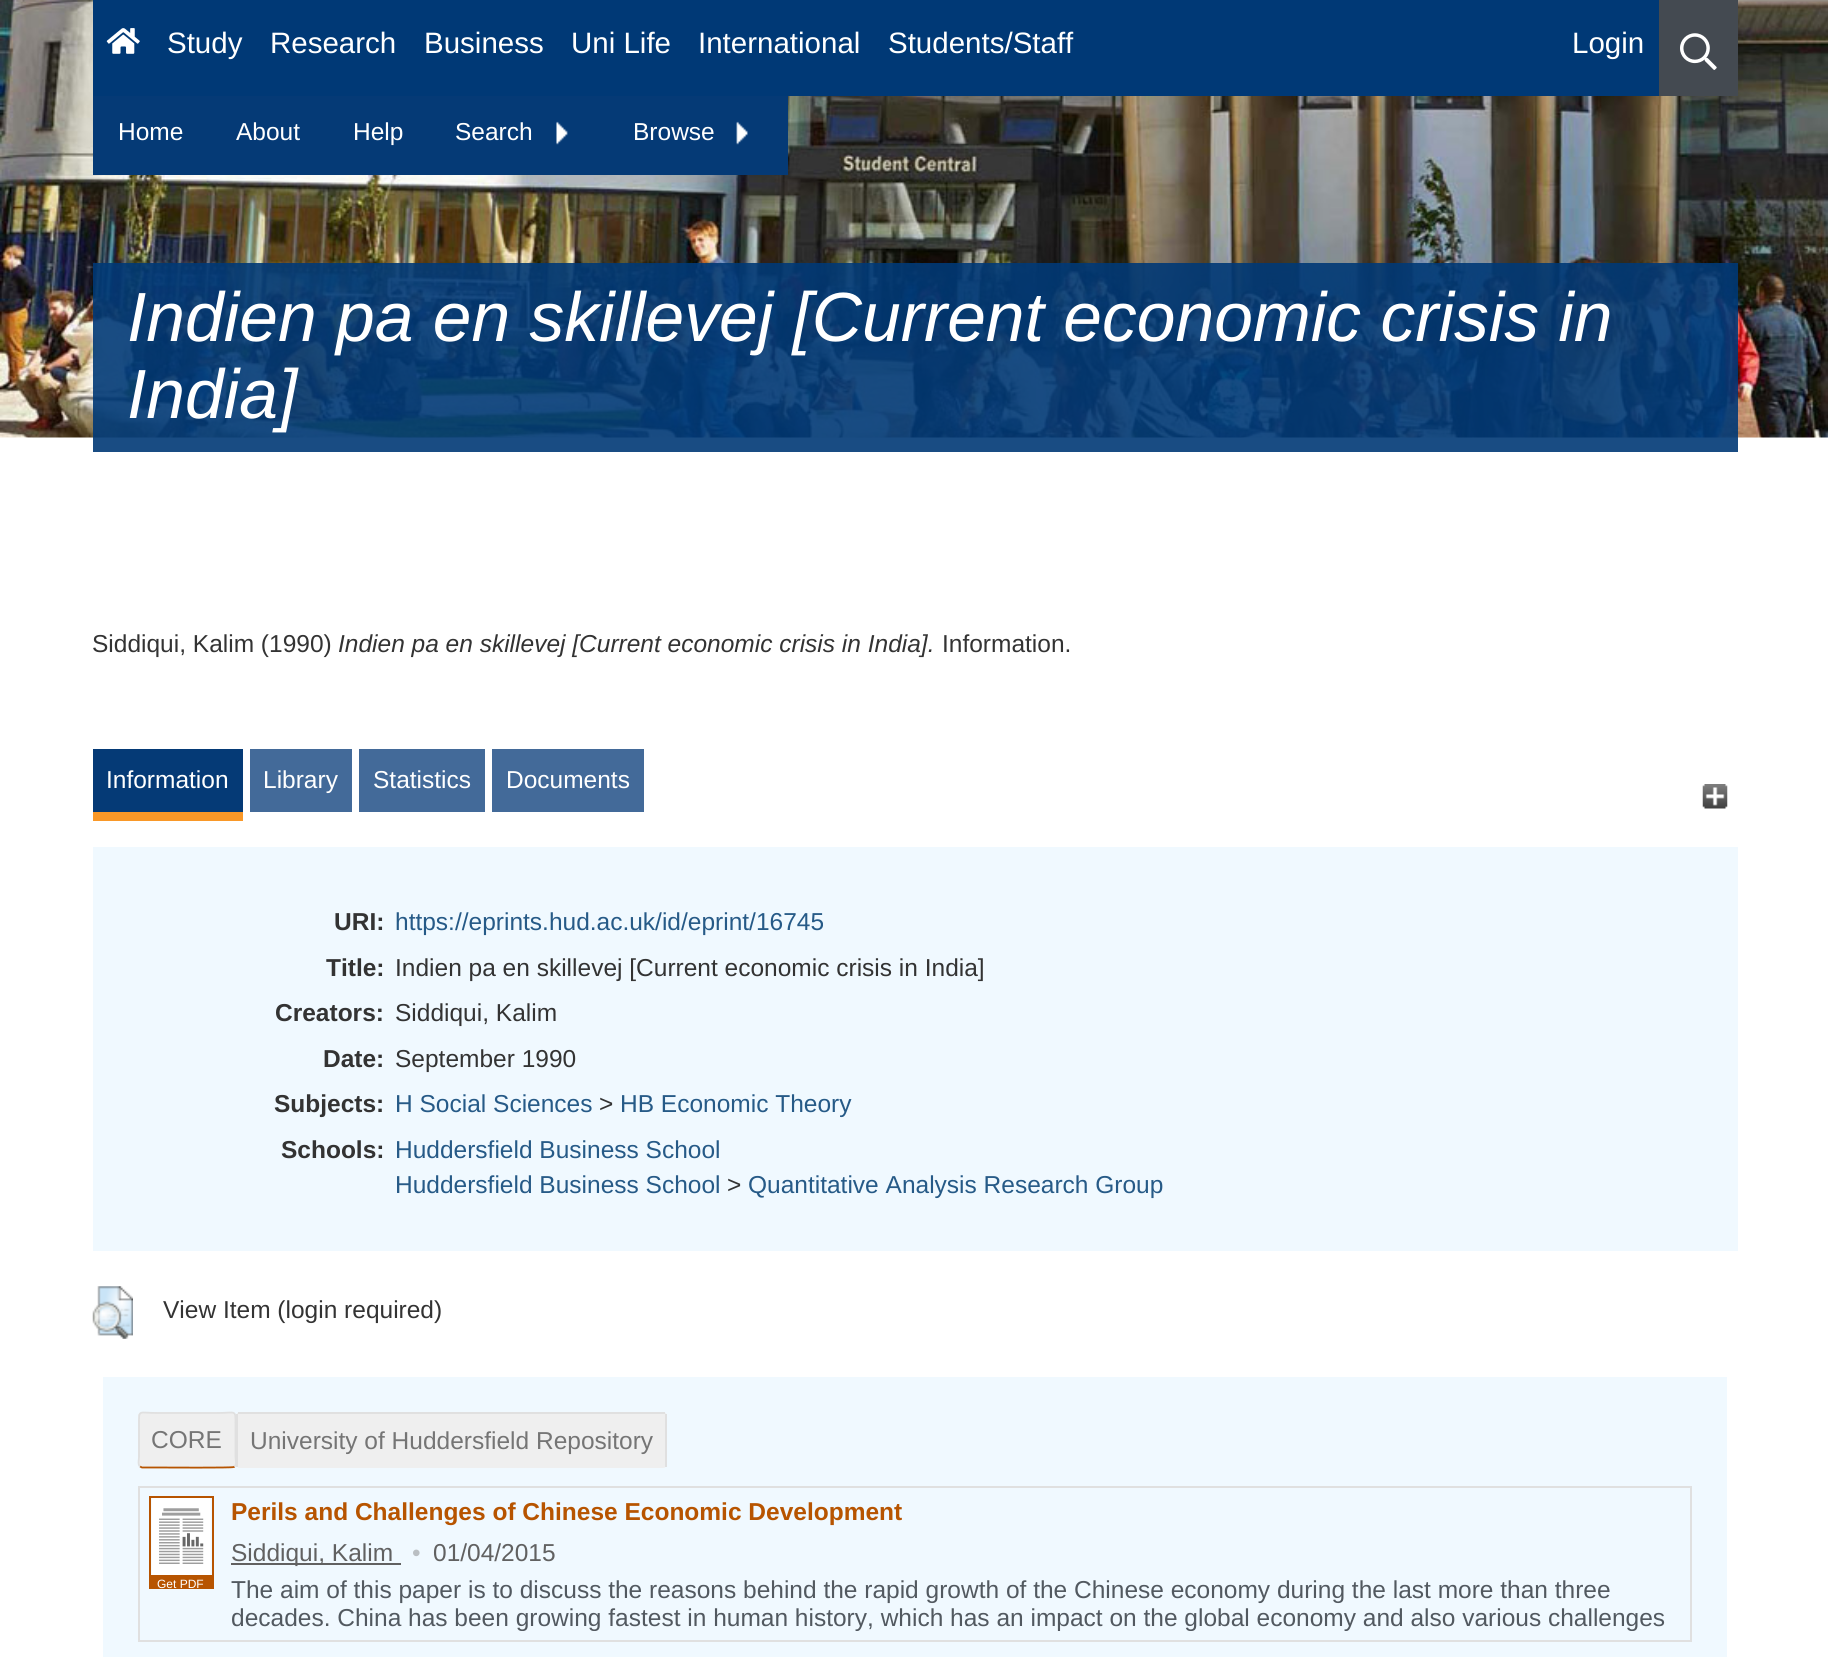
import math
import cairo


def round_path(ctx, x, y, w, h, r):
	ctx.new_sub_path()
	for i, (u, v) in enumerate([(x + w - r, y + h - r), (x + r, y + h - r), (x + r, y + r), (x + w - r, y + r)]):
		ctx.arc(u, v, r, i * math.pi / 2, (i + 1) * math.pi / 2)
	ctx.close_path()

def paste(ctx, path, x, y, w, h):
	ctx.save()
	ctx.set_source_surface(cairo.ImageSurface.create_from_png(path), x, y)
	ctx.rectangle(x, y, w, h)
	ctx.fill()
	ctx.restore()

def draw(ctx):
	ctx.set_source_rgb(1, 1, 1)
	ctx.paint()
	paste(ctx, 'media/5.png', 0, 0, 1828, 438)
	ctx.set_source_rgb(0, 0.224, 0.463)
	ctx.rectangle(93, 0, 1566, 96)
	ctx.fill()
	paste(ctx, 'media/1.png', 106, 28, 34, 26)
	ctx.select_font_face('Liberation Sans')
	ctx.set_font_size(29.5)
	ctx.set_source_rgb(1, 1, 1)
	for x, y, s in [
		(167, 53, 'Study'),
		(270, 53, 'Research'),
		(424, 53, 'Business'),
		(571, 53, 'Uni Life'),
		(698, 53, 'International'),
		(888, 53, 'Students/Staff'),
		(1572, 53, 'Login'),
	]:
		ctx.move_to(x, y)
		ctx.show_text(s)
	ctx.set_source_rgb(0.267, 0.29, 0.318)
	ctx.rectangle(1659, 0, 79, 96)
	ctx.fill()
	paste(ctx, 'media/2.png', 1680, 33, 37, 37)
	ctx.set_source_rgb(0.02, 0.227, 0.463)
	ctx.rectangle(93, 96, 695, 79)
	ctx.fill()
	ctx.set_font_size(24.5)
	ctx.set_source_rgb(1, 1, 1)
	for x, y, s in [
		(118, 140, 'Home'),
		(236, 140, 'About'),
		(353, 140, 'Help'),
		(455, 140, 'Search'),
	]:
		ctx.move_to(x, y)
		ctx.show_text(s)
	paste(ctx, 'media/3.png', 556, 121, 12, 24)
	ctx.move_to(633, 140)
	ctx.show_text('Browse')
	paste(ctx, 'media/4.png', 736, 121, 12, 24)
	ctx.set_source_rgba(0, 0.224, 0.463, 0.9)
	ctx.rectangle(93, 263, 1645, 189)
	ctx.fill()
	ctx.select_font_face('Liberation Sans', cairo.FONT_SLANT_ITALIC)
	ctx.set_font_size(69.6)
	ctx.set_source_rgb(1, 1, 1)
	ctx.move_to(127, 341)
	ctx.show_text('Indien pa en skillevej [Current economic crisis in')
	ctx.move_to(127, 418)
	ctx.show_text('India]')
	ctx.select_font_face('Liberation Sans')
	ctx.set_font_size(24.5)
	ctx.set_source_rgb(0.2, 0.2, 0.2)
	ctx.move_to(92, 652)
	ctx.show_text('Siddiqui, Kalim (1990)')
	ctx.select_font_face('Liberation Sans', cairo.FONT_SLANT_ITALIC)
	ctx.move_to(338, 652)
	ctx.show_text('Indien pa en skillevej [Current economic crisis in India].')
	ctx.select_font_face('Liberation Sans')
	ctx.move_to(942, 652)
	ctx.show_text('Information.')
	ctx.set_source_rgb(0.02, 0.227, 0.463)
	ctx.rectangle(93, 749, 150, 63)
	ctx.fill()
	ctx.set_source_rgb(0.973, 0.596, 0.157)
	ctx.rectangle(93, 812, 150, 9)
	ctx.fill()
	ctx.set_source_rgb(1, 1, 1)
	ctx.move_to(106, 788)
	ctx.show_text('Information')
	ctx.set_source_rgb(0.263, 0.416, 0.6)
	ctx.rectangle(250, 749, 102, 63)
	ctx.fill()
	ctx.set_source_rgb(1, 1, 1)
	ctx.move_to(263, 788)
	ctx.show_text('Library')
	ctx.set_source_rgb(0.263, 0.416, 0.6)
	ctx.rectangle(359, 749, 126, 63)
	ctx.fill()
	ctx.set_source_rgb(1, 1, 1)
	ctx.move_to(373, 788)
	ctx.show_text('Statistics')
	ctx.set_source_rgb(0.263, 0.416, 0.6)
	ctx.rectangle(492, 749, 152, 63)
	ctx.fill()
	ctx.set_source_rgb(1, 1, 1)
	ctx.move_to(506, 788)
	ctx.show_text('Documents')
	paste(ctx, 'media/6.png', 1702, 784, 26, 25)
	ctx.set_source_rgb(0.941, 0.973, 1)
	ctx.rectangle(93, 847, 1645, 404)
	ctx.fill()
	ctx.select_font_face('Liberation Sans', cairo.FONT_SLANT_NORMAL, cairo.FONT_WEIGHT_BOLD)
	ctx.set_source_rgb(0.2, 0.2, 0.2)
	ctx.move_to(334, 930)
	ctx.show_text('URI:')
	ctx.select_font_face('Liberation Sans')
	ctx.set_source_rgb(0.149, 0.353, 0.529)
	ctx.move_to(395, 930)
	ctx.show_text('https://eprints.hud.ac.uk/id/eprint/16745')
	ctx.select_font_face('Liberation Sans', cairo.FONT_SLANT_NORMAL, cairo.FONT_WEIGHT_BOLD)
	ctx.set_source_rgb(0.2, 0.2, 0.2)
	ctx.move_to(326, 976)
	ctx.show_text('Title:')
	ctx.select_font_face('Liberation Sans')
	ctx.move_to(395, 976)
	ctx.show_text('Indien pa en skillevej [Current economic crisis in India]')
	ctx.select_font_face('Liberation Sans', cairo.FONT_SLANT_NORMAL, cairo.FONT_WEIGHT_BOLD)
	ctx.move_to(275, 1021)
	ctx.show_text('Creators:')
	ctx.select_font_face('Liberation Sans')
	ctx.move_to(395, 1021)
	ctx.show_text('Siddiqui, Kalim')
	ctx.select_font_face('Liberation Sans', cairo.FONT_SLANT_NORMAL, cairo.FONT_WEIGHT_BOLD)
	ctx.move_to(323, 1067)
	ctx.show_text('Date:')
	ctx.select_font_face('Liberation Sans')
	ctx.move_to(395, 1067)
	ctx.show_text('September 1990')
	ctx.select_font_face('Liberation Sans', cairo.FONT_SLANT_NORMAL, cairo.FONT_WEIGHT_BOLD)
	ctx.move_to(274, 1112)
	ctx.show_text('Subjects:')
	ctx.select_font_face('Liberation Sans')
	ctx.set_source_rgb(0.149, 0.353, 0.529)
	ctx.move_to(395, 1112)
	ctx.show_text('H Social Sciences')
	ctx.set_source_rgb(0.2, 0.2, 0.2)
	ctx.move_to(599, 1112)
	ctx.show_text('>')
	ctx.set_source_rgb(0.149, 0.353, 0.529)
	ctx.move_to(620, 1112)
	ctx.show_text('HB Economic Theory')
	ctx.select_font_face('Liberation Sans', cairo.FONT_SLANT_NORMAL, cairo.FONT_WEIGHT_BOLD)
	ctx.set_source_rgb(0.2, 0.2, 0.2)
	ctx.move_to(281, 1158)
	ctx.show_text('Schools:')
	ctx.select_font_face('Liberation Sans')
	ctx.set_source_rgb(0.149, 0.353, 0.529)
	ctx.move_to(395, 1158)
	ctx.show_text('Huddersfield Business School')
	ctx.move_to(395, 1193)
	ctx.show_text('Huddersfield Business School')
	ctx.set_source_rgb(0.2, 0.2, 0.2)
	ctx.move_to(727, 1193)
	ctx.show_text('>')
	ctx.set_source_rgb(0.149, 0.353, 0.529)
	ctx.move_to(748, 1193)
	ctx.show_text('Quantitative Analysis Research Group')
	paste(ctx, 'media/7.png', 92, 1286, 41, 53)
	ctx.set_source_rgb(0.2, 0.2, 0.2)
	ctx.move_to(163, 1318)
	ctx.show_text('View Item (login required)')
	ctx.set_source_rgb(0.941, 0.973, 1)
	ctx.rectangle(103, 1377, 1624, 280)
	ctx.fill()
	ctx.set_source_rgb(0.937, 0.937, 0.937)
	round_path(ctx, 138, 1412, 98, 56, 4)
	ctx.fill()
	ctx.new_path()
	ctx.move_to(234.5, 1466.5)
	ctx.line_to(234, 1467)
	ctx.curve_to(232, 1468, 165, 1467.5, 157, 1467.5)
	ctx.line_to(142, 1467.5)
	ctx.line_to(140, 1466.5)
	ctx.set_source_rgb(0.718, 0.329, 0)
	ctx.set_line_width(1.8)
	ctx.stroke()
	ctx.new_path()
	ctx.move_to(140, 1466.5)
	ctx.curve_to(137.5, 1464, 139, 1460, 139, 1456.5)
	ctx.line_to(139, 1424)
	ctx.curve_to(139, 1409, 138.5, 1413, 157, 1413)
	ctx.line_to(217.5, 1413)
	ctx.curve_to(236, 1413, 235.5, 1409, 235.5, 1424)
	ctx.line_to(235.5, 1456.5)
	ctx.curve_to(235.5, 1460, 237, 1464, 234.5, 1466.5)
	ctx.set_source_rgb(0.878, 0.878, 0.878)
	ctx.stroke()
	ctx.set_source_rgb(0.459, 0.459, 0.459)
	ctx.move_to(151, 1448)
	ctx.show_text('CORE')
	ctx.set_source_rgb(0.937, 0.937, 0.937)
	round_path(ctx, 236, 1412, 431, 56, 4)
	ctx.fill()
	ctx.set_source_rgb(0.878, 0.878, 0.878)
	ctx.rectangle(238, 1412, 427, 2)
	ctx.rectangle(665, 1414, 2, 53)
	ctx.rectangle(236, 1414, 2, 53)
	ctx.fill()
	ctx.set_source_rgb(0.459, 0.459, 0.459)
	ctx.move_to(250, 1449)
	ctx.show_text('University of Huddersfield Repository')
	ctx.rectangle(139, 1487, 1552, 154)
	ctx.set_source_rgb(0.878, 0.878, 0.878)
	ctx.set_line_width(2)
	ctx.stroke()
	ctx.rectangle(150, 1497, 63, 79)
	ctx.set_source_rgb(0.718, 0.329, 0)
	ctx.stroke()
	paste(ctx, 'media/8.png', 151, 1498, 60, 77)
	ctx.rectangle(149, 1577, 65, 12)
	ctx.fill()
	ctx.set_font_size(12)
	ctx.set_source_rgb(1, 1, 1)
	ctx.move_to(157, 1588)
	ctx.show_text('Get PDF')
	ctx.select_font_face('Liberation Sans', cairo.FONT_SLANT_NORMAL, cairo.FONT_WEIGHT_BOLD)
	ctx.set_font_size(24.5)
	ctx.set_source_rgb(0.718, 0.329, 0)
	ctx.move_to(231, 1520)
	ctx.show_text('Perils and Challenges of Chinese Economic Development')
	ctx.set_source_rgb(0.38, 0.38, 0.38)
	ctx.rectangle(231, 1563, 170, 2)
	ctx.fill()
	ctx.select_font_face('Liberation Sans')
	ctx.move_to(231, 1561)
	ctx.show_text('Siddiqui, Kalim')
	ctx.set_source_rgb(0.729, 0.749, 0.765)
	ctx.move_to(412, 1561)
	ctx.show_text('•')
	ctx.set_source_rgb(0.38, 0.38, 0.38)
	ctx.move_to(433, 1561)
	ctx.show_text('01/04/2015')
	ctx.set_source_rgb(0.322, 0.349, 0.376)
	ctx.move_to(231, 1598)
	ctx.show_text('The aim of this paper is to discuss the reasons behind the rapid growth of the Chinese economy during the last more than three')
	ctx.save()
	ctx.rectangle(231, 1575, 1451, 56)
	ctx.clip()
	ctx.move_to(231, 1626)
	ctx.show_text('decades. China has been growing fastest in human history, which has an impact on the global economy and also various challenges')
	ctx.restore()


surface = cairo.ImageSurface(cairo.FORMAT_RGB24, 1828, 1657)
ctx = cairo.Context(surface)
options = cairo.FontOptions()
options.set_hint_metrics(cairo.HINT_METRICS_OFF)
options.set_hint_style(cairo.HINT_STYLE_NONE)
ctx.set_font_options(options)
ctx.set_miter_limit(4)
draw(ctx)
surface.write_to_png('image.png')
